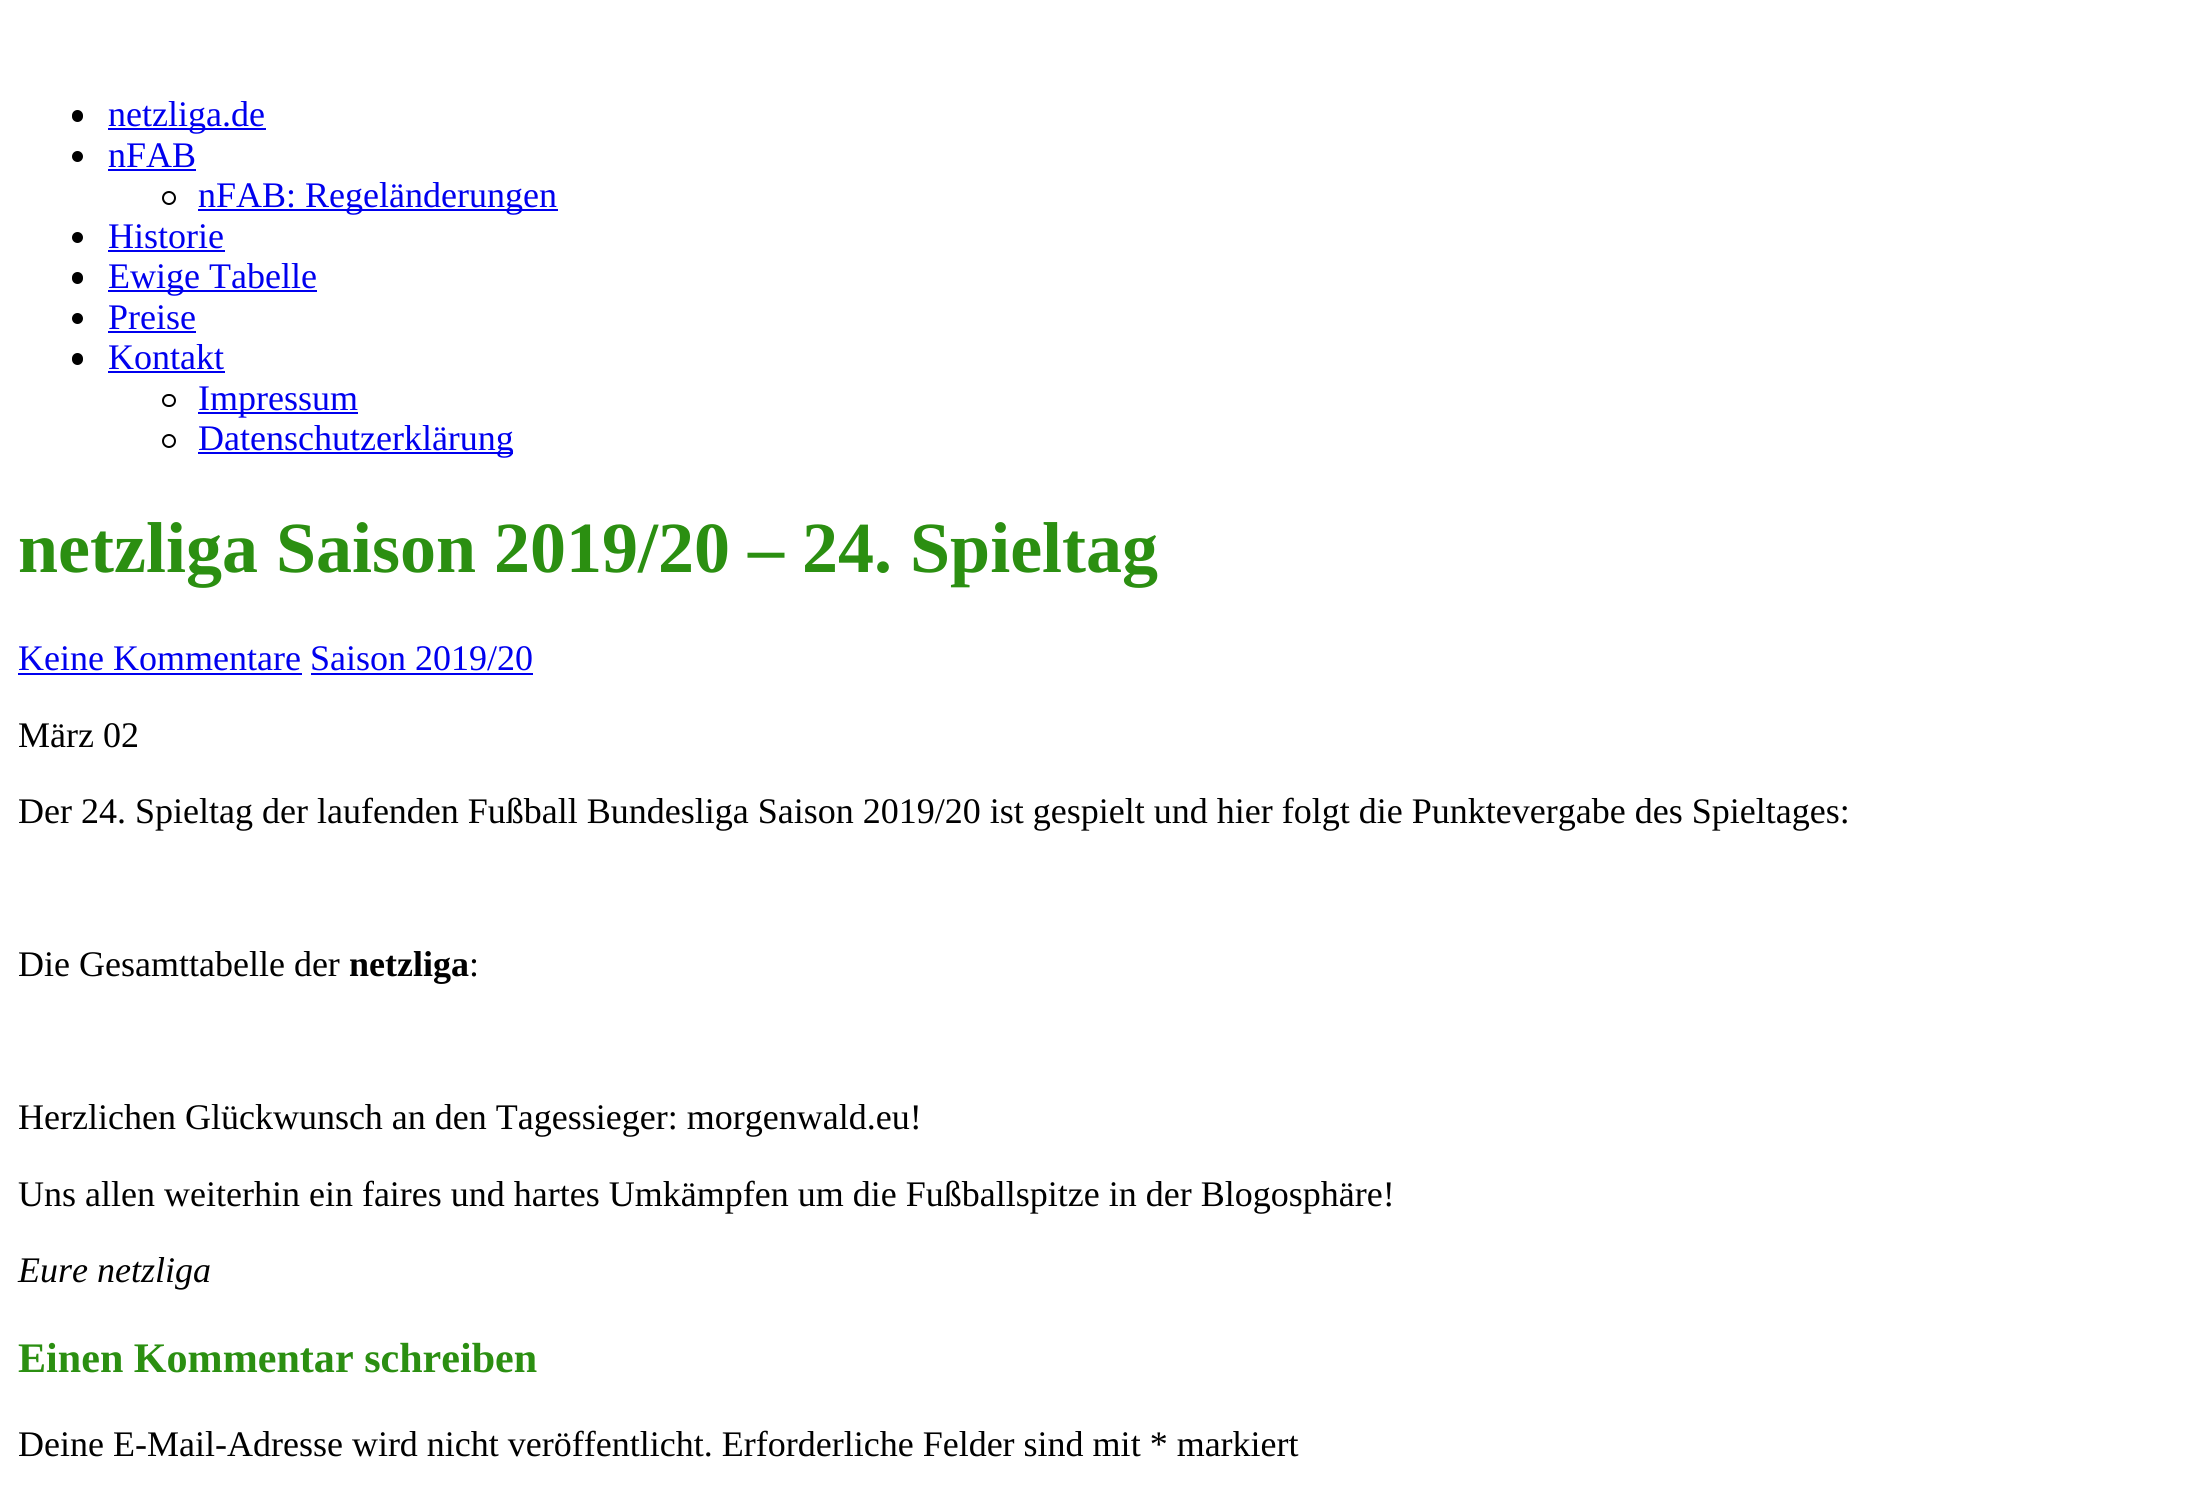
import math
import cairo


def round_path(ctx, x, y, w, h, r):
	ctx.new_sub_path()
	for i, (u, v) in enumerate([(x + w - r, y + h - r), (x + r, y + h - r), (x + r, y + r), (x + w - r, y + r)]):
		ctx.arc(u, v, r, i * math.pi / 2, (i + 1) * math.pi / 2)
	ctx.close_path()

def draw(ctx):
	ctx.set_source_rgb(1, 1, 1)
	ctx.paint()
	ctx.set_source_rgb(0, 0, 0)
	round_path(ctx, 72, 110, 11, 12, 5.5)
	ctx.fill()
	ctx.set_source_rgb(0, 0, 0.933)
	ctx.rectangle(108, 128, 158, 2)
	ctx.fill()
	ctx.select_font_face('Liberation Serif')
	ctx.set_font_size(36)
	ctx.move_to(108, 126)
	ctx.show_text('netzliga.de')
	ctx.set_source_rgb(0, 0, 0)
	ctx.new_path()
	ctx.arc(77.5, 156.5, 5.5, 0, 2 * math.pi)
	ctx.fill()
	ctx.set_source_rgb(0, 0, 0.933)
	ctx.move_to(108, 167)
	ctx.show_text('nFAB')
	ctx.rectangle(108, 169, 88, 2)
	ctx.fill()
	ctx.arc(169, 198, 6, 0, 2 * math.pi)
	ctx.set_source_rgb(0, 0, 0)
	ctx.stroke()
	ctx.set_source_rgb(0, 0, 0.933)
	ctx.rectangle(198, 209, 360, 2)
	ctx.fill()
	ctx.move_to(198, 207)
	ctx.show_text('nFAB: Regeländerungen')
	ctx.set_source_rgb(0, 0, 0)
	ctx.new_path()
	ctx.arc(77.5, 237.5, 5.5, 0, 2 * math.pi)
	ctx.fill()
	ctx.set_source_rgb(0, 0, 0.933)
	ctx.move_to(108, 248)
	ctx.show_text('Historie')
	ctx.rectangle(108, 250, 117, 2)
	ctx.fill()
	ctx.set_source_rgb(0, 0, 0)
	round_path(ctx, 72, 272, 11, 12, 5.5)
	ctx.fill()
	ctx.set_source_rgb(0, 0, 0.933)
	ctx.rectangle(108, 290, 209, 2)
	ctx.fill()
	ctx.move_to(108, 288)
	ctx.show_text('Ewige Tabelle')
	ctx.set_source_rgb(0, 0, 0)
	ctx.new_path()
	ctx.arc(77.5, 318.5, 5.5, 0, 2 * math.pi)
	ctx.fill()
	ctx.set_source_rgb(0, 0, 0.933)
	ctx.move_to(108, 329)
	ctx.show_text('Preise')
	ctx.rectangle(108, 331, 88, 2)
	ctx.fill()
	ctx.set_source_rgb(0, 0, 0)
	round_path(ctx, 72, 353, 11, 12, 5.5)
	ctx.fill()
	ctx.set_source_rgb(0, 0, 0.933)
	ctx.move_to(108, 369)
	ctx.show_text('Kontakt')
	ctx.rectangle(108, 371, 117, 2)
	ctx.fill()
	round_path(ctx, 163, 395, 12, 11, 5.5)
	ctx.set_source_rgb(0, 0, 0)
	ctx.stroke()
	ctx.set_source_rgb(0, 0, 0.933)
	ctx.rectangle(198, 412, 160, 2)
	ctx.fill()
	ctx.move_to(198, 410)
	ctx.show_text('Impressum')
	ctx.new_path()
	ctx.arc(169, 441, 6, 0, 2 * math.pi)
	ctx.set_source_rgb(0, 0, 0)
	ctx.stroke()
	ctx.set_source_rgb(0, 0, 0.933)
	ctx.rectangle(198, 452, 315, 2)
	ctx.fill()
	ctx.move_to(198, 450)
	ctx.show_text('Datenschutzerklärung')
	ctx.select_font_face('Liberation Serif', cairo.FONT_SLANT_NORMAL, cairo.FONT_WEIGHT_BOLD)
	ctx.set_font_size(72)
	ctx.set_source_rgb(0.169, 0.561, 0.067)
	ctx.move_to(18, 572)
	ctx.show_text('netzliga Saison 2019/20 – 24. Spieltag')
	ctx.select_font_face('Liberation Serif')
	ctx.set_font_size(36)
	ctx.set_source_rgb(0, 0, 0.933)
	ctx.move_to(18, 670)
	ctx.show_text('Keine Kommentare Saison 2019/20')
	ctx.rectangle(18, 673, 284, 2)
	ctx.fill()
	ctx.rectangle(311, 673, 222, 2)
	ctx.fill()
	ctx.set_source_rgb(0, 0, 0)
	for x, y, s in [
		(18, 747, 'März 02'),
		(18, 823, 'Der 24. Spieltag der laufenden Fußball Bundesliga Saison 2019/20 ist gespielt und hier folgt die Punktevergabe des Spieltages:'),
		(18, 976, 'Die Gesamttabelle der'),
	]:
		ctx.move_to(x, y)
		ctx.show_text(s)
	ctx.select_font_face('Liberation Serif', cairo.FONT_SLANT_NORMAL, cairo.FONT_WEIGHT_BOLD)
	ctx.move_to(349, 976)
	ctx.show_text('netzliga')
	ctx.select_font_face('Liberation Serif')
	for x, y, s in [
		(469, 976, ':'),
		(18, 1129, 'Herzlichen Glückwunsch an den Tagessieger: morgenwald.eu!'),
		(18, 1206, 'Uns allen weiterhin ein faires und hartes Umkämpfen um die Fußballspitze in der Blogosphäre!'),
	]:
		ctx.move_to(x, y)
		ctx.show_text(s)
	ctx.select_font_face('Liberation Serif', cairo.FONT_SLANT_ITALIC)
	ctx.move_to(18, 1282)
	ctx.show_text('Eure netzliga')
	ctx.select_font_face('Liberation Serif', cairo.FONT_SLANT_NORMAL, cairo.FONT_WEIGHT_BOLD)
	ctx.set_font_size(42.1)
	ctx.set_source_rgb(0.169, 0.561, 0.067)
	ctx.move_to(18, 1372)
	ctx.show_text('Einen Kommentar schreiben')
	ctx.select_font_face('Liberation Serif')
	ctx.set_font_size(36)
	ctx.set_source_rgb(0, 0, 0)
	ctx.move_to(18, 1456)
	ctx.show_text('Deine E-Mail-Adresse wird nicht veröffentlicht. Erforderliche Felder sind mit * markiert')


surface = cairo.ImageSurface(cairo.FORMAT_RGB24, 2203, 1489)
ctx = cairo.Context(surface)
options = cairo.FontOptions()
options.set_hint_metrics(cairo.HINT_METRICS_OFF)
options.set_hint_style(cairo.HINT_STYLE_NONE)
ctx.set_font_options(options)
ctx.set_miter_limit(4)
draw(ctx)
surface.write_to_png('image.png')
